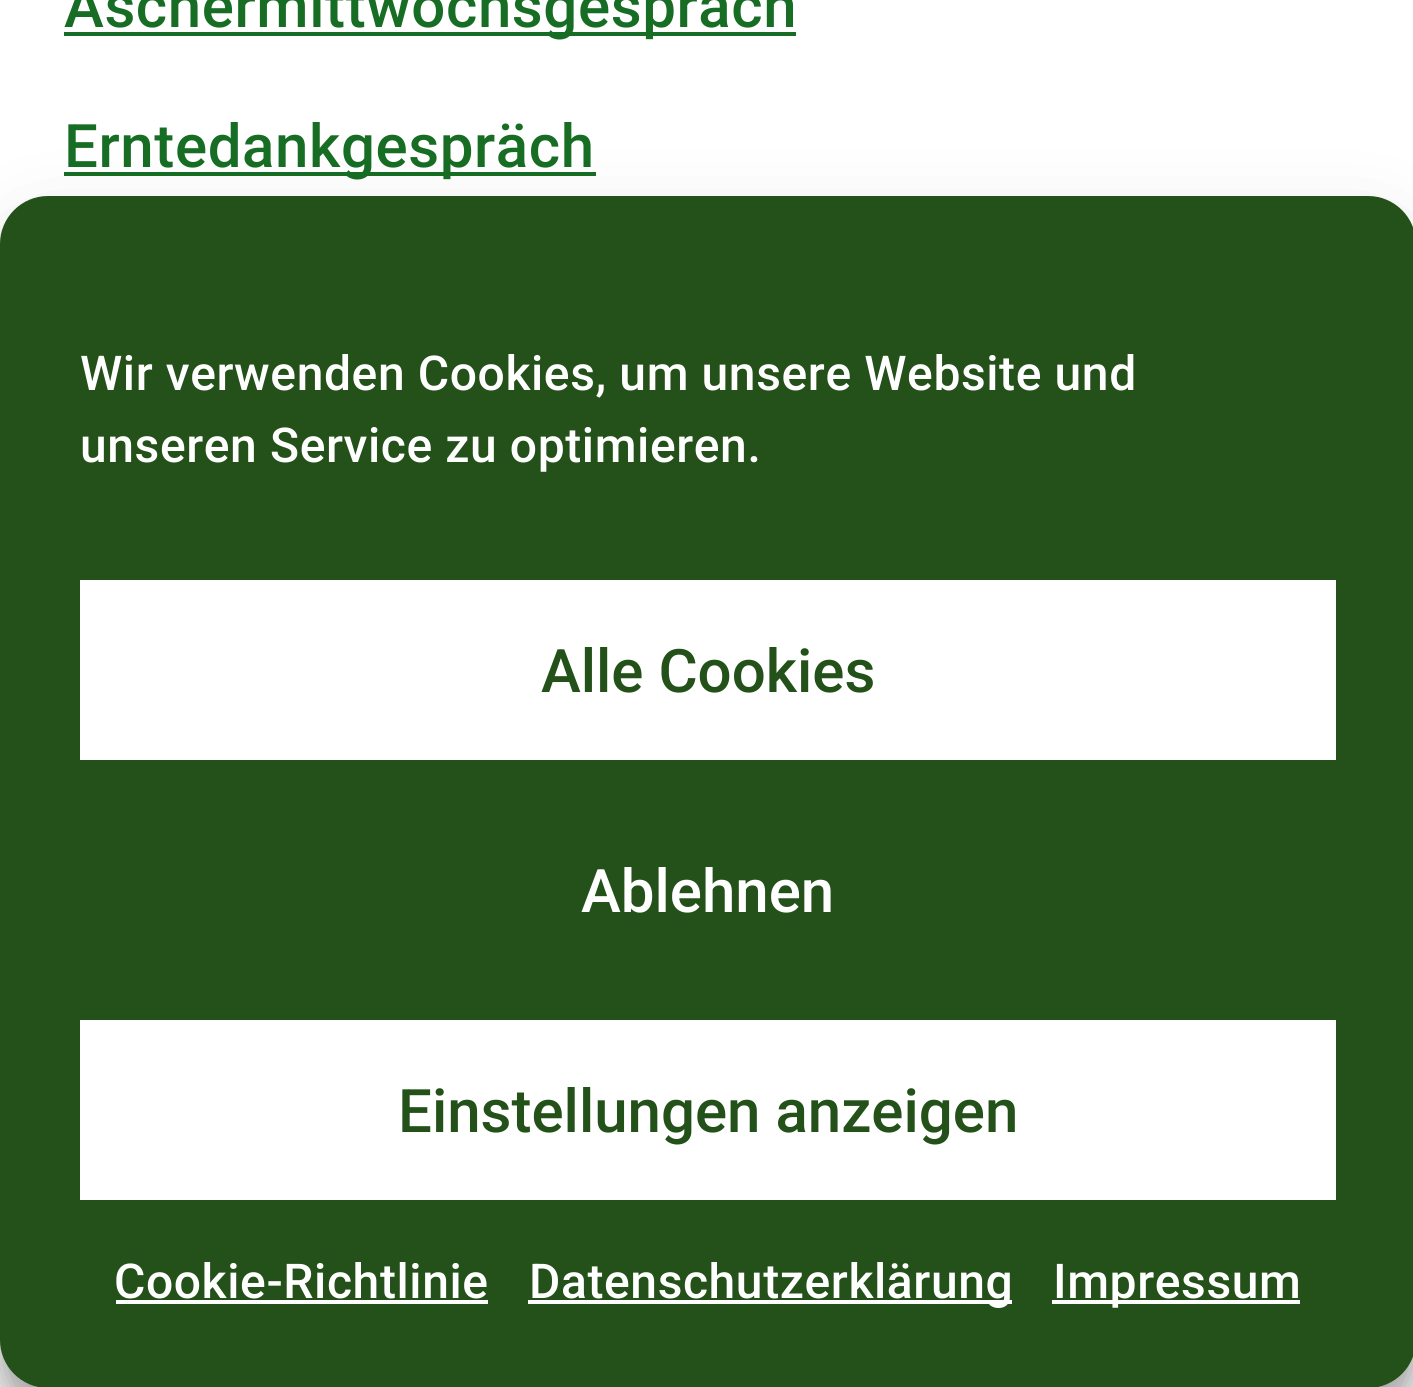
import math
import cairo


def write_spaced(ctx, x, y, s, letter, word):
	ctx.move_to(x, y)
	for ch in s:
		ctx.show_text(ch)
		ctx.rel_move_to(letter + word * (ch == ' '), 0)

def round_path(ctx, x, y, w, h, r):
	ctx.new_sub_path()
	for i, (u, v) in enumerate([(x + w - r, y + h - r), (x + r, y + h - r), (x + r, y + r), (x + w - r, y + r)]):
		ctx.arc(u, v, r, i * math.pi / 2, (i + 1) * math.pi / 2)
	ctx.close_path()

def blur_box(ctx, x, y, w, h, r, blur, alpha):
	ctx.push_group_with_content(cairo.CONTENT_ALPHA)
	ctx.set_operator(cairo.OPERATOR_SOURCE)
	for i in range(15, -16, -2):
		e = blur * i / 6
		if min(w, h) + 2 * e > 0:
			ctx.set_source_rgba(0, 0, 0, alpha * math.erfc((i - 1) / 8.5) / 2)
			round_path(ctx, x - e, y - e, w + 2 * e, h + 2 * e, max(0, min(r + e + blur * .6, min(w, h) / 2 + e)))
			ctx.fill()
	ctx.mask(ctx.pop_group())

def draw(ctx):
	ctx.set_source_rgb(1, 1, 1)
	ctx.paint()
	ctx.set_source_rgb(0.09, 0.427, 0.141)
	ctx.rectangle(64, 32, 732, 4)
	ctx.fill()
	ctx.select_font_face('Roboto Medium')
	ctx.set_font_size(60)
	write_spaced(ctx, 64, 27, 'Aschermittwochsgespräch', 0.6, 0)
	ctx.rectangle(64, 172, 532, 4)
	ctx.fill()
	write_spaced(ctx, 64, 167, 'Erntedankgespräch', 0.6, 0)
	ctx.set_source_rgb(0, 0, 0)
	blur_box(ctx, 0, 220, 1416, 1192, 48, 12, 0.23)
	blur_box(ctx, 0, 236, 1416, 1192, 48, 40, 0.19)
	ctx.set_source_rgb(0.137, 0.318, 0.098)
	round_path(ctx, 0, 196, 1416, 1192, 48)
	ctx.fill()
	ctx.set_font_size(48)
	ctx.set_source_rgb(1, 1, 1)
	write_spaced(ctx, 80, 390, 'Wir verwenden Cookies, um unsere Website und', 0.6, 0)
	write_spaced(ctx, 80, 462, 'unseren Service zu optimieren.', 0.6, 0)
	ctx.rectangle(80, 580, 1256, 180)
	ctx.fill()
	ctx.set_font_size(60)
	ctx.set_source_rgb(0.137, 0.318, 0.098)
	ctx.move_to(541, 692)
	ctx.show_text('Alle Cookies')
	ctx.set_source_rgb(1, 1, 1)
	ctx.move_to(581, 912)
	ctx.show_text('Ablehnen')
	ctx.rectangle(80, 1020, 1256, 180)
	ctx.fill()
	ctx.set_source_rgb(0.137, 0.318, 0.098)
	ctx.move_to(398, 1132)
	ctx.show_text('Einstellungen anzeigen')
	ctx.set_font_size(48)
	ctx.set_source_rgb(1, 1, 1)
	write_spaced(ctx, 114, 1298, 'Cookie-Richtlinie', 0.6, 0)
	ctx.rectangle(116, 1300, 372, 4)
	ctx.fill()
	ctx.rectangle(528, 1300, 484, 4)
	ctx.fill()
	write_spaced(ctx, 529, 1298, 'Datenschutzerklärung', 0.6, 0)
	ctx.rectangle(1052, 1300, 248, 4)
	ctx.fill()
	write_spaced(ctx, 1053, 1298, 'Impressum', 0.6, 0)


surface = cairo.ImageSurface(cairo.FORMAT_RGB24, 1413, 1387)
ctx = cairo.Context(surface)
options = cairo.FontOptions()
options.set_hint_metrics(cairo.HINT_METRICS_OFF)
options.set_hint_style(cairo.HINT_STYLE_NONE)
ctx.set_font_options(options)
ctx.set_miter_limit(4)
draw(ctx)
surface.write_to_png('image.png')
